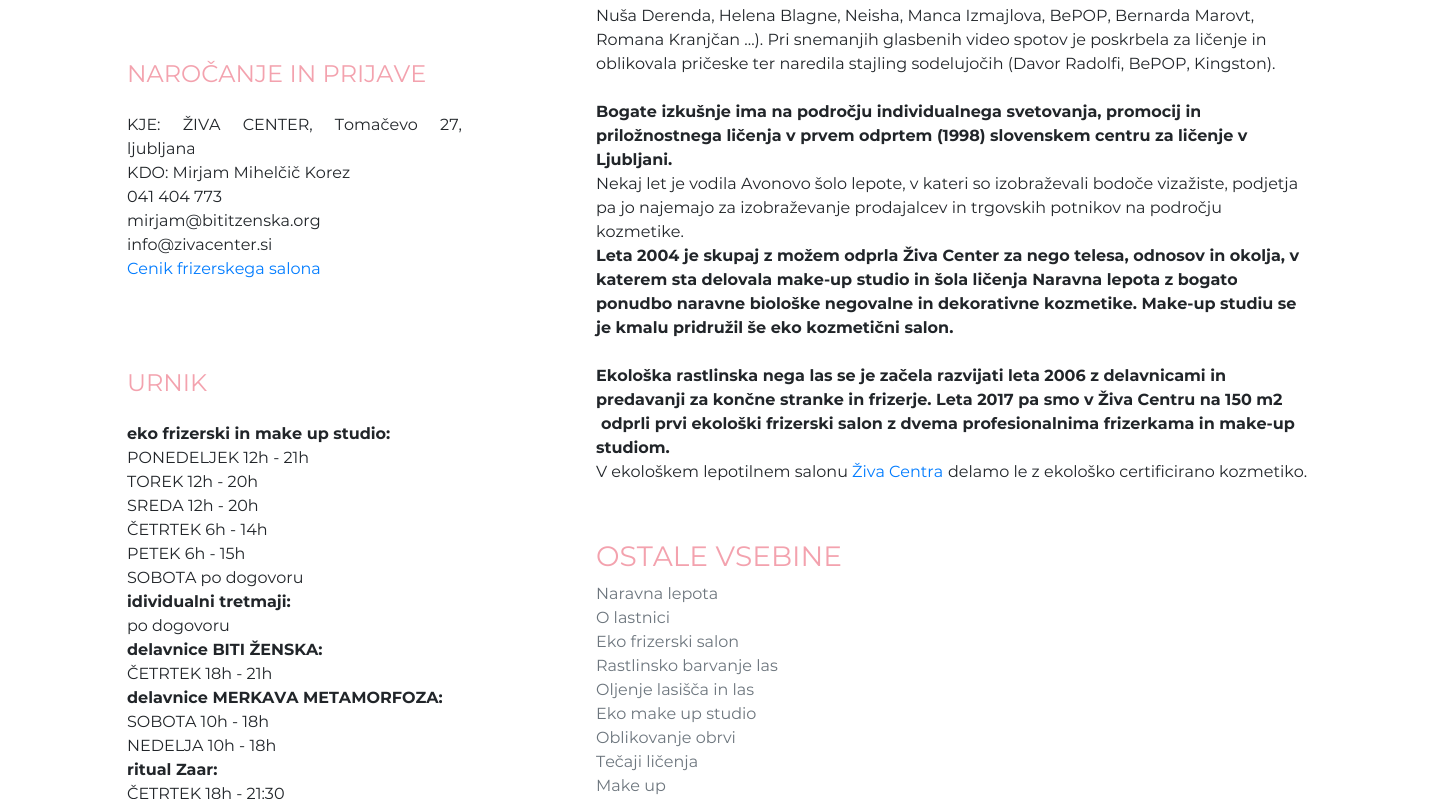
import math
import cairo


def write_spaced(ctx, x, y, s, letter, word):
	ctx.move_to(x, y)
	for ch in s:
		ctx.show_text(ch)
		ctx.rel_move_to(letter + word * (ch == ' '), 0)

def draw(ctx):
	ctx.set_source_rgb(1, 1, 1)
	ctx.paint()
	ctx.select_font_face('Montserrat')
	ctx.set_font_size(24)
	ctx.set_source_rgb(0.953, 0.635, 0.682)
	ctx.move_to(127, 82)
	ctx.show_text('NAROČANJE IN PRIJAVE')
	ctx.set_font_size(16)
	ctx.set_source_rgb(0.129, 0.145, 0.161)
	write_spaced(ctx, 127, 130, 'KJE: ŽIVA CENTER, Tomačevo 27,', 0, 18)
	for x, y, s in [
		(127, 154, 'ljubljana'),
		(127, 178, 'KDO: Mirjam Mihelčič Korez'),
		(127, 202, '041 404 773'),
		(127, 226, 'mirjam@bititzenska.org'),
		(127, 250, 'info@zivacenter.si'),
	]:
		ctx.move_to(x, y)
		ctx.show_text(s)
	ctx.set_source_rgb(0, 0.482, 1)
	ctx.move_to(127, 274)
	ctx.show_text('Cenik frizerskega salona')
	ctx.set_font_size(24)
	ctx.set_source_rgb(0.953, 0.635, 0.682)
	ctx.move_to(127, 391)
	ctx.show_text('URNIK')
	ctx.select_font_face('Montserrat', cairo.FONT_SLANT_NORMAL, cairo.FONT_WEIGHT_BOLD)
	ctx.set_font_size(16)
	ctx.set_source_rgb(0.129, 0.145, 0.161)
	ctx.move_to(127, 439)
	ctx.show_text('eko frizerski in make up studio:')
	ctx.select_font_face('Montserrat')
	for x, y, s in [
		(127, 463, 'PONEDELJEK 12h - 21h'),
		(127, 487, 'TOREK 12h - 20h'),
		(127, 511, 'SREDA 12h - 20h'),
		(127, 535, 'ČETRTEK 6h - 14h'),
		(127, 559, 'PETEK 6h - 15h'),
		(127, 583, 'SOBOTA po dogovoru'),
	]:
		ctx.move_to(x, y)
		ctx.show_text(s)
	ctx.select_font_face('Montserrat', cairo.FONT_SLANT_NORMAL, cairo.FONT_WEIGHT_BOLD)
	ctx.move_to(127, 607)
	ctx.show_text('idividualni tretmaji:')
	ctx.select_font_face('Montserrat')
	ctx.move_to(127, 631)
	ctx.show_text('po dogovoru')
	ctx.select_font_face('Montserrat', cairo.FONT_SLANT_NORMAL, cairo.FONT_WEIGHT_BOLD)
	ctx.move_to(127, 655)
	ctx.show_text('delavnice BITI ŽENSKA:')
	ctx.select_font_face('Montserrat')
	ctx.move_to(127, 679)
	ctx.show_text('ČETRTEK 18h - 21h')
	ctx.select_font_face('Montserrat', cairo.FONT_SLANT_NORMAL, cairo.FONT_WEIGHT_BOLD)
	ctx.move_to(127, 703)
	ctx.show_text('delavnice MERKAVA METAMORFOZA:')
	ctx.select_font_face('Montserrat')
	ctx.move_to(127, 727)
	ctx.show_text('SOBOTA 10h - 18h')
	ctx.move_to(127, 751)
	ctx.show_text('NEDELJA 10h - 18h')
	ctx.select_font_face('Montserrat', cairo.FONT_SLANT_NORMAL, cairo.FONT_WEIGHT_BOLD)
	ctx.move_to(127, 775)
	ctx.show_text('ritual Zaar:')
	ctx.select_font_face('Montserrat')
	for x, y, s in [
		(127, 799, 'ČETRTEK 18h - 21:30'),
		(596, 21, 'Nuša Derenda, Helena Blagne, Neisha, Manca Izmajlova, BePOP, Bernarda Marovt,'),
		(596, 45, 'Romana Kranjčan ...). Pri snemanjih glasbenih video spotov je poskrbela za ličenje in'),
		(596, 69, 'oblikovala pričeske ter naredila stajling sodelujočih (Davor Radolfi, BePOP, Kingston).'),
	]:
		ctx.move_to(x, y)
		ctx.show_text(s)
	ctx.select_font_face('Montserrat', cairo.FONT_SLANT_NORMAL, cairo.FONT_WEIGHT_BOLD)
	for x, y, s in [
		(596, 117, 'Bogate izkušnje ima na področju individualnega svetovanja, promocij in'),
		(596, 141, 'priložnostnega ličenja v prvem odprtem (1998) slovenskem centru za ličenje v'),
		(596, 165, 'Ljubljani.'),
	]:
		ctx.move_to(x, y)
		ctx.show_text(s)
	ctx.select_font_face('Montserrat')
	for x, y, s in [
		(596, 189, 'Nekaj let je vodila Avonovo šolo lepote, v kateri so izobraževali bodoče vizažiste, podjetja'),
		(596, 213, 'pa jo najemajo za izobraževanje prodajalcev in trgovskih potnikov na področju'),
		(596, 237, 'kozmetike.'),
	]:
		ctx.move_to(x, y)
		ctx.show_text(s)
	ctx.select_font_face('Montserrat', cairo.FONT_SLANT_NORMAL, cairo.FONT_WEIGHT_BOLD)
	for x, y, s in [
		(596, 261, 'Leta 2004 je skupaj z možem odprla Živa Center za nego telesa, odnosov in okolja, v'),
		(596, 285, 'katerem sta delovala make-up studio in šola ličenja Naravna lepota z bogato'),
		(596, 309, 'ponudbo naravne biološke negovalne in dekorativne kozmetike. Make-up studiu se'),
		(596, 333, 'je kmalu pridružil še eko kozmetični salon.'),
		(596, 381, 'Ekološka rastlinska nega las se je začela razvijati leta 2006 z delavnicami in'),
		(596, 405, 'predavanji za končne stranke in frizerje. Leta 2017 pa smo v Živa Centru na 150 m2'),
		(601, 429, 'odprli prvi ekološki frizerski salon z dvema profesionalnima frizerkama in make-up'),
		(596, 453, 'studiom.'),
	]:
		ctx.move_to(x, y)
		ctx.show_text(s)
	ctx.select_font_face('Montserrat')
	ctx.move_to(596, 477)
	ctx.show_text('V ekološkem lepotilnem salonu')
	ctx.set_source_rgb(0, 0.482, 1)
	ctx.move_to(852, 477)
	ctx.show_text('Živa Centra')
	ctx.set_source_rgb(0.129, 0.145, 0.161)
	ctx.move_to(948, 477)
	ctx.show_text('delamo le z ekološko certificirano kozmetiko.')
	ctx.set_font_size(28)
	ctx.set_source_rgb(0.953, 0.635, 0.682)
	ctx.move_to(596, 566)
	ctx.show_text('OSTALE VSEBINE')
	ctx.set_font_size(16)
	ctx.set_source_rgb(0.424, 0.459, 0.49)
	for x, y, s in [
		(596, 599, 'Naravna lepota'),
		(596, 623, 'O lastnici'),
		(596, 647, 'Eko frizerski salon'),
		(596, 671, 'Rastlinsko barvanje las'),
		(596, 695, 'Oljenje lasišča in las'),
		(596, 719, 'Eko make up studio'),
		(596, 743, 'Oblikovanje obrvi'),
		(596, 767, 'Tečaji ličenja'),
		(596, 791, 'Make up'),
	]:
		ctx.move_to(x, y)
		ctx.show_text(s)


surface = cairo.ImageSurface(cairo.FORMAT_RGB24, 1431, 799)
ctx = cairo.Context(surface)
options = cairo.FontOptions()
options.set_hint_metrics(cairo.HINT_METRICS_OFF)
options.set_hint_style(cairo.HINT_STYLE_NONE)
ctx.set_font_options(options)
ctx.set_miter_limit(4)
draw(ctx)
surface.write_to_png('image.png')
